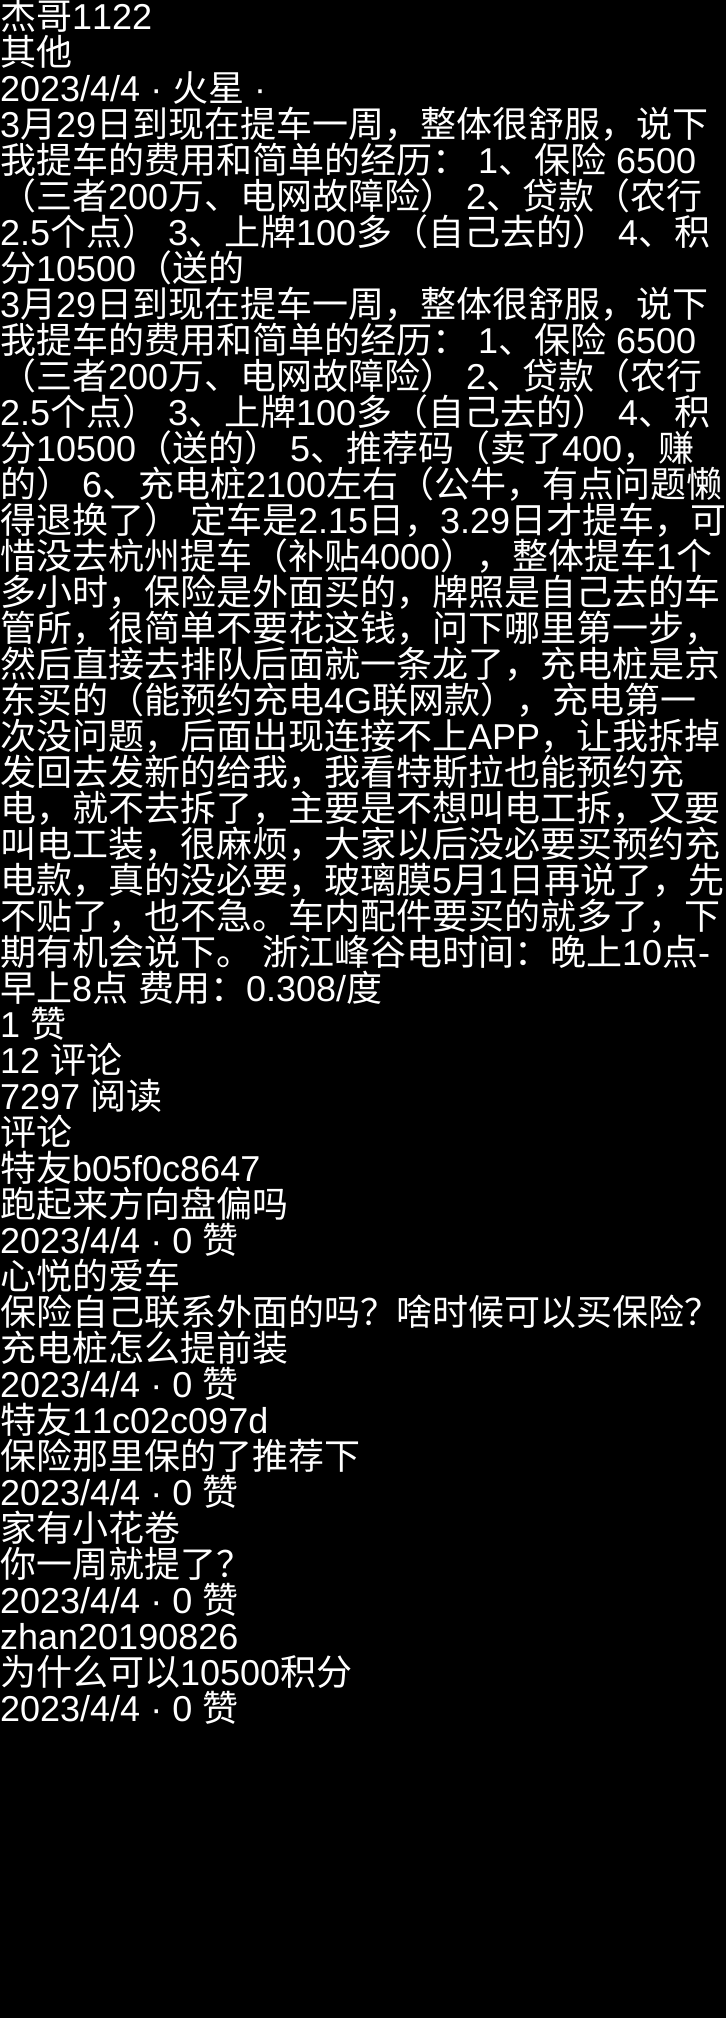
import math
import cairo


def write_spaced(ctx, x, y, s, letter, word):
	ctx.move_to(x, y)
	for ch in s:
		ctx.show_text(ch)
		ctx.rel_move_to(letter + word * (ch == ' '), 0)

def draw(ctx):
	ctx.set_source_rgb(0, 0, 0)
	ctx.paint()
	ctx.select_font_face('Noto Sans CJK SC')
	ctx.set_font_size(36)
	ctx.set_source_rgb(1, 1, 1)
	ctx.move_to(0, 29)
	ctx.show_text('杰哥')
	ctx.select_font_face('Liberation Sans')
	ctx.move_to(72, 29)
	ctx.show_text('1122')
	ctx.select_font_face('Noto Sans CJK SC')
	ctx.move_to(0, 65)
	ctx.show_text('其他')
	ctx.select_font_face('Liberation Sans')
	ctx.move_to(0, 101)
	ctx.show_text('2023/4/4 ·')
	ctx.select_font_face('Noto Sans CJK SC')
	ctx.move_to(172, 101)
	ctx.show_text('火星')
	ctx.select_font_face('Liberation Sans')
	ctx.move_to(254, 101)
	ctx.show_text('·')
	ctx.move_to(0, 137)
	ctx.show_text('3')
	ctx.select_font_face('Noto Sans CJK SC')
	ctx.move_to(20, 137)
	ctx.show_text('月')
	ctx.select_font_face('Liberation Sans')
	ctx.move_to(56, 137)
	ctx.show_text('29')
	ctx.select_font_face('Noto Sans CJK SC')
	ctx.move_to(96, 137)
	ctx.show_text('日到现在提车一周，整体很舒服，说下')
	ctx.move_to(0, 173)
	ctx.show_text('我提车的费用和简单的经历：')
	ctx.select_font_face('Liberation Sans')
	ctx.move_to(478, 173)
	ctx.show_text('1')
	ctx.select_font_face('Noto Sans CJK SC')
	ctx.move_to(498, 173)
	ctx.show_text('、保险')
	ctx.select_font_face('Liberation Sans')
	ctx.move_to(616, 173)
	ctx.show_text('6500')
	ctx.select_font_face('Noto Sans CJK SC')
	ctx.move_to(0, 209)
	ctx.show_text('（三者')
	ctx.select_font_face('Liberation Sans')
	ctx.move_to(108, 209)
	ctx.show_text('200')
	ctx.select_font_face('Noto Sans CJK SC')
	ctx.move_to(168, 209)
	ctx.show_text('万、电网故障险）')
	ctx.select_font_face('Liberation Sans')
	ctx.move_to(466, 209)
	ctx.show_text('2')
	ctx.select_font_face('Noto Sans CJK SC')
	ctx.move_to(486, 209)
	ctx.show_text('、贷款（农行')
	ctx.select_font_face('Liberation Sans')
	ctx.move_to(0, 245)
	ctx.show_text('2.5')
	ctx.select_font_face('Noto Sans CJK SC')
	ctx.move_to(50, 245)
	ctx.show_text('个点）')
	ctx.select_font_face('Liberation Sans')
	ctx.move_to(168, 245)
	ctx.show_text('3')
	ctx.select_font_face('Noto Sans CJK SC')
	ctx.move_to(188, 245)
	ctx.show_text('、上牌')
	ctx.select_font_face('Liberation Sans')
	ctx.move_to(296, 245)
	ctx.show_text('100')
	ctx.select_font_face('Noto Sans CJK SC')
	ctx.move_to(356, 245)
	ctx.show_text('多（自己去的）')
	ctx.select_font_face('Liberation Sans')
	ctx.move_to(618, 245)
	ctx.show_text('4')
	ctx.select_font_face('Noto Sans CJK SC')
	ctx.move_to(638, 245)
	ctx.show_text('、积')
	ctx.move_to(0, 281)
	ctx.show_text('分')
	ctx.select_font_face('Liberation Sans')
	ctx.move_to(36, 281)
	ctx.show_text('10500')
	ctx.select_font_face('Noto Sans CJK SC')
	ctx.move_to(136, 281)
	ctx.show_text('（送的')
	ctx.select_font_face('Liberation Sans')
	ctx.move_to(0, 317)
	ctx.show_text('3')
	ctx.select_font_face('Noto Sans CJK SC')
	ctx.move_to(20, 317)
	ctx.show_text('月')
	ctx.select_font_face('Liberation Sans')
	ctx.move_to(56, 317)
	ctx.show_text('29')
	ctx.select_font_face('Noto Sans CJK SC')
	ctx.move_to(96, 317)
	ctx.show_text('日到现在提车一周，整体很舒服，说下')
	ctx.move_to(0, 353)
	ctx.show_text('我提车的费用和简单的经历：')
	ctx.select_font_face('Liberation Sans')
	ctx.move_to(478, 353)
	ctx.show_text('1')
	ctx.select_font_face('Noto Sans CJK SC')
	ctx.move_to(498, 353)
	ctx.show_text('、保险')
	ctx.select_font_face('Liberation Sans')
	ctx.move_to(616, 353)
	ctx.show_text('6500')
	ctx.select_font_face('Noto Sans CJK SC')
	ctx.move_to(0, 389)
	ctx.show_text('（三者')
	ctx.select_font_face('Liberation Sans')
	ctx.move_to(108, 389)
	ctx.show_text('200')
	ctx.select_font_face('Noto Sans CJK SC')
	ctx.move_to(168, 389)
	ctx.show_text('万、电网故障险）')
	ctx.select_font_face('Liberation Sans')
	ctx.move_to(466, 389)
	ctx.show_text('2')
	ctx.select_font_face('Noto Sans CJK SC')
	ctx.move_to(486, 389)
	ctx.show_text('、贷款（农行')
	ctx.select_font_face('Liberation Sans')
	ctx.move_to(0, 425)
	ctx.show_text('2.5')
	ctx.select_font_face('Noto Sans CJK SC')
	ctx.move_to(50, 425)
	ctx.show_text('个点）')
	ctx.select_font_face('Liberation Sans')
	ctx.move_to(168, 425)
	ctx.show_text('3')
	ctx.select_font_face('Noto Sans CJK SC')
	ctx.move_to(188, 425)
	ctx.show_text('、上牌')
	ctx.select_font_face('Liberation Sans')
	ctx.move_to(296, 425)
	ctx.show_text('100')
	ctx.select_font_face('Noto Sans CJK SC')
	ctx.move_to(356, 425)
	ctx.show_text('多（自己去的）')
	ctx.select_font_face('Liberation Sans')
	ctx.move_to(618, 425)
	ctx.show_text('4')
	ctx.select_font_face('Noto Sans CJK SC')
	ctx.move_to(638, 425)
	ctx.show_text('、积')
	ctx.move_to(0, 461)
	ctx.show_text('分')
	ctx.select_font_face('Liberation Sans')
	ctx.move_to(36, 461)
	ctx.show_text('10500')
	ctx.select_font_face('Noto Sans CJK SC')
	ctx.move_to(136, 461)
	ctx.show_text('（送的）')
	ctx.select_font_face('Liberation Sans')
	ctx.move_to(290, 461)
	ctx.show_text('5')
	ctx.select_font_face('Noto Sans CJK SC')
	ctx.move_to(310, 461)
	ctx.show_text('、推荐码（卖了')
	ctx.select_font_face('Liberation Sans')
	ctx.move_to(562, 461)
	ctx.show_text('400')
	ctx.select_font_face('Noto Sans CJK SC')
	ctx.move_to(622, 461)
	ctx.show_text('，赚')
	ctx.move_to(0, 497)
	ctx.show_text('的）')
	ctx.select_font_face('Liberation Sans')
	ctx.move_to(82, 497)
	ctx.show_text('6')
	ctx.select_font_face('Noto Sans CJK SC')
	ctx.move_to(102, 497)
	ctx.show_text('、充电桩')
	ctx.select_font_face('Liberation Sans')
	ctx.move_to(246, 497)
	ctx.show_text('2100')
	ctx.select_font_face('Noto Sans CJK SC')
	ctx.move_to(326, 497)
	ctx.show_text('左右（公牛，有点问题懒')
	write_spaced(ctx, 0, 533, '得退换了） 定车是', 0, 2)
	ctx.select_font_face('Liberation Sans')
	ctx.move_to(298, 533)
	ctx.show_text('2.15')
	ctx.select_font_face('Noto Sans CJK SC')
	ctx.move_to(368, 533)
	ctx.show_text('日，')
	ctx.select_font_face('Liberation Sans')
	ctx.move_to(440, 533)
	ctx.show_text('3.29')
	ctx.select_font_face('Noto Sans CJK SC')
	ctx.move_to(510, 533)
	ctx.show_text('日才提车，可')
	ctx.move_to(0, 569)
	ctx.show_text('惜没去杭州提车（补贴')
	ctx.select_font_face('Liberation Sans')
	ctx.move_to(360, 569)
	ctx.show_text('4000')
	ctx.select_font_face('Noto Sans CJK SC')
	ctx.move_to(440, 569)
	ctx.show_text('），整体提车')
	ctx.select_font_face('Liberation Sans')
	ctx.move_to(656, 569)
	ctx.show_text('1')
	ctx.select_font_face('Noto Sans CJK SC')
	for x, y, s in [
		(676, 569, '个'),
		(0, 605, '多小时，保险是外面买的，牌照是自己去的车'),
		(0, 641, '管所，很简单不要花这钱，问下哪里第一步，'),
		(0, 677, '然后直接去排队后面就一条龙了，充电桩是京'),
		(0, 713, '东买的（能预约充电'),
	]:
		ctx.move_to(x, y)
		ctx.show_text(s)
	ctx.select_font_face('Liberation Sans')
	ctx.move_to(324, 713)
	ctx.show_text('4G')
	ctx.select_font_face('Noto Sans CJK SC')
	ctx.move_to(372, 713)
	ctx.show_text('联网款），充电第一')
	ctx.move_to(0, 749)
	ctx.show_text('次没问题，后面出现连接不上')
	ctx.select_font_face('Liberation Sans')
	ctx.move_to(468, 749)
	ctx.show_text('APP')
	ctx.select_font_face('Noto Sans CJK SC')
	for x, y, s in [
		(540, 749, '，让我拆掉'),
		(0, 785, '发回去发新的给我，我看特斯拉也能预约充'),
		(0, 821, '电，就不去拆了，主要是不想叫电工拆，又要'),
		(0, 857, '叫电工装，很麻烦，大家以后没必要买预约充'),
		(0, 893, '电款，真的没必要，玻璃膜'),
	]:
		ctx.move_to(x, y)
		ctx.show_text(s)
	ctx.select_font_face('Liberation Sans')
	ctx.move_to(432, 893)
	ctx.show_text('5')
	ctx.select_font_face('Noto Sans CJK SC')
	ctx.move_to(452, 893)
	ctx.show_text('月')
	ctx.select_font_face('Liberation Sans')
	ctx.move_to(488, 893)
	ctx.show_text('1')
	ctx.select_font_face('Noto Sans CJK SC')
	ctx.move_to(508, 893)
	ctx.show_text('日再说了，先')
	ctx.move_to(0, 929)
	ctx.show_text('不贴了，也不急。车内配件要买的就多了，下')
	write_spaced(ctx, 0, 965, '期有机会说下。 浙江峰谷电时间：晚上', 0, 2)
	ctx.select_font_face('Liberation Sans')
	ctx.move_to(622, 965)
	ctx.show_text('10')
	ctx.select_font_face('Noto Sans CJK SC')
	ctx.move_to(662, 965)
	ctx.show_text('点')
	ctx.select_font_face('Liberation Sans')
	ctx.move_to(698, 965)
	ctx.show_text('-')
	ctx.select_font_face('Noto Sans CJK SC')
	ctx.move_to(0, 1001)
	ctx.show_text('早上')
	ctx.select_font_face('Liberation Sans')
	ctx.move_to(72, 1001)
	ctx.show_text('8')
	ctx.select_font_face('Noto Sans CJK SC')
	write_spaced(ctx, 92, 1001, '点 费用：', 0, 2)
	ctx.select_font_face('Liberation Sans')
	ctx.move_to(246, 1001)
	ctx.show_text('0.308/')
	ctx.select_font_face('Noto Sans CJK SC')
	ctx.move_to(346, 1001)
	ctx.show_text('度')
	ctx.select_font_face('Liberation Sans')
	ctx.move_to(0, 1037)
	ctx.show_text('1')
	ctx.select_font_face('Noto Sans CJK SC')
	ctx.move_to(30, 1037)
	ctx.show_text('赞')
	ctx.select_font_face('Liberation Sans')
	ctx.move_to(0, 1073)
	ctx.show_text('12')
	ctx.select_font_face('Noto Sans CJK SC')
	ctx.move_to(50, 1073)
	ctx.show_text('评论')
	ctx.select_font_face('Liberation Sans')
	ctx.move_to(0, 1109)
	ctx.show_text('7297')
	ctx.select_font_face('Noto Sans CJK SC')
	for x, y, s in [
		(90, 1109, '阅读'),
		(0, 1145, '评论'),
		(0, 1181, '特友'),
	]:
		ctx.move_to(x, y)
		ctx.show_text(s)
	ctx.select_font_face('Liberation Sans')
	ctx.move_to(72, 1181)
	ctx.show_text('b05f0c8647')
	ctx.select_font_face('Noto Sans CJK SC')
	ctx.move_to(0, 1217)
	ctx.show_text('跑起来方向盘偏吗')
	ctx.select_font_face('Liberation Sans')
	ctx.move_to(0, 1253)
	ctx.show_text('2023/4/4 · 0')
	ctx.select_font_face('Noto Sans CJK SC')
	for x, y, s in [
		(202, 1253, '赞'),
		(0, 1289, '心悦的爱车'),
		(0, 1325, '保险自己联系外面的吗？啥时候可以买保险？'),
		(0, 1361, '充电桩怎么提前装'),
	]:
		ctx.move_to(x, y)
		ctx.show_text(s)
	ctx.select_font_face('Liberation Sans')
	ctx.move_to(0, 1397)
	ctx.show_text('2023/4/4 · 0')
	ctx.select_font_face('Noto Sans CJK SC')
	ctx.move_to(202, 1397)
	ctx.show_text('赞')
	ctx.move_to(0, 1433)
	ctx.show_text('特友')
	ctx.select_font_face('Liberation Sans')
	ctx.move_to(72, 1433)
	ctx.show_text('11c02c097d')
	ctx.select_font_face('Noto Sans CJK SC')
	ctx.move_to(0, 1469)
	ctx.show_text('保险那里保的了推荐下')
	ctx.select_font_face('Liberation Sans')
	ctx.move_to(0, 1505)
	ctx.show_text('2023/4/4 · 0')
	ctx.select_font_face('Noto Sans CJK SC')
	for x, y, s in [
		(202, 1505, '赞'),
		(0, 1541, '家有小花卷'),
		(0, 1577, '你一周就提了？'),
	]:
		ctx.move_to(x, y)
		ctx.show_text(s)
	ctx.select_font_face('Liberation Sans')
	ctx.move_to(0, 1613)
	ctx.show_text('2023/4/4 · 0')
	ctx.select_font_face('Noto Sans CJK SC')
	ctx.move_to(202, 1613)
	ctx.show_text('赞')
	ctx.select_font_face('Liberation Sans')
	ctx.move_to(0, 1649)
	ctx.show_text('zhan20190826')
	ctx.select_font_face('Noto Sans CJK SC')
	ctx.move_to(0, 1685)
	ctx.show_text('为什么可以')
	ctx.select_font_face('Liberation Sans')
	ctx.move_to(180, 1685)
	ctx.show_text('10500')
	ctx.select_font_face('Noto Sans CJK SC')
	ctx.move_to(280, 1685)
	ctx.show_text('积分')
	ctx.select_font_face('Liberation Sans')
	ctx.move_to(0, 1721)
	ctx.show_text('2023/4/4 · 0')
	ctx.select_font_face('Noto Sans CJK SC')
	ctx.move_to(202, 1721)
	ctx.show_text('赞')


surface = cairo.ImageSurface(cairo.FORMAT_RGB24, 726, 2018)
ctx = cairo.Context(surface)
options = cairo.FontOptions()
options.set_hint_metrics(cairo.HINT_METRICS_OFF)
options.set_hint_style(cairo.HINT_STYLE_NONE)
ctx.set_font_options(options)
ctx.set_miter_limit(4)
draw(ctx)
surface.write_to_png('image.png')
